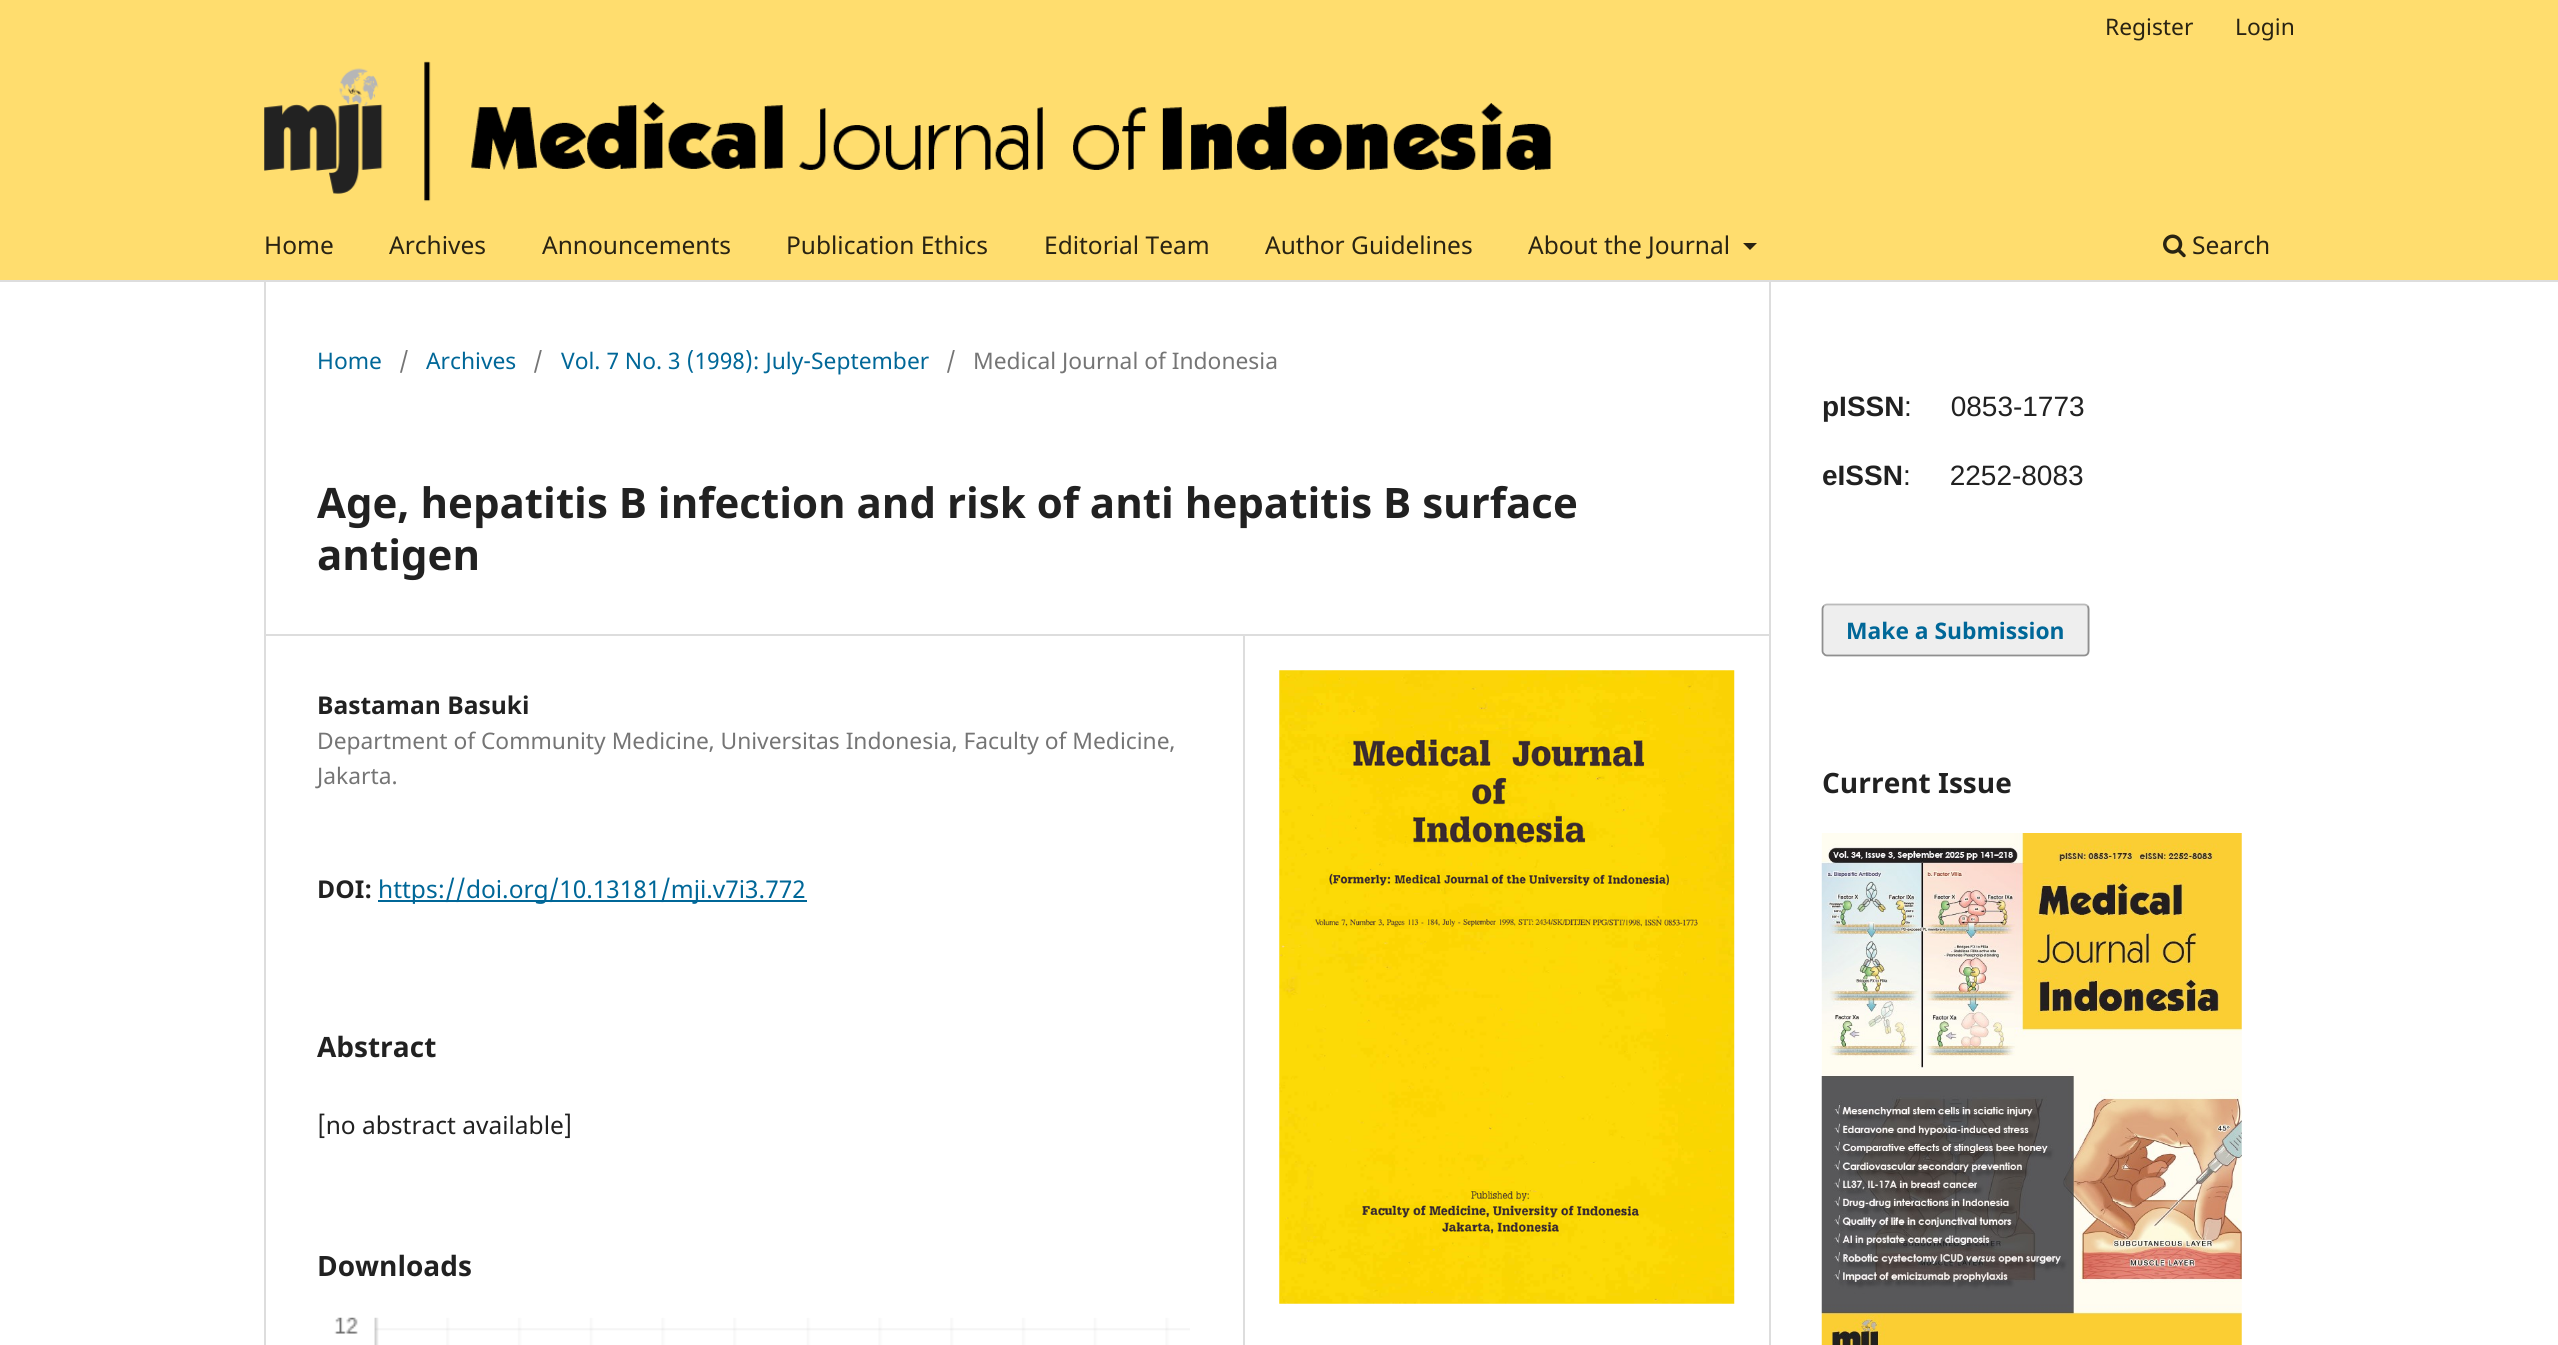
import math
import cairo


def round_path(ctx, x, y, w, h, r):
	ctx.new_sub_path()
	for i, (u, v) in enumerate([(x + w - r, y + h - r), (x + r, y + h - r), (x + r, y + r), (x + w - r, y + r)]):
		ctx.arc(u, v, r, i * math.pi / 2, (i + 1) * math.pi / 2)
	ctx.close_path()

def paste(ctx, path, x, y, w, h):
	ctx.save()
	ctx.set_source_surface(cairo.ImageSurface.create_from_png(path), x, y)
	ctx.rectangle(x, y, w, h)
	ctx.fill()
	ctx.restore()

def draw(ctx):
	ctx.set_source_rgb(1, 1, 1)
	ctx.paint()
	ctx.set_source_rgb(1, 0.867, 0.431)
	ctx.rectangle(0, 0, 2558, 280)
	ctx.fill()
	ctx.set_source_rgb(0.867, 0.867, 0.867)
	ctx.rectangle(0, 280, 2558, 2)
	ctx.fill()
	ctx.select_font_face('Noto Sans')
	ctx.set_font_size(22.8)
	ctx.set_source_rgb(0.161, 0.137, 0.071)
	ctx.move_to(2105, 35)
	ctx.show_text('Register')
	ctx.move_to(2235, 35)
	ctx.show_text('Login')
	ctx.set_font_size(24.5)
	for x, y, s in [
		(264, 254, 'Home'),
		(389, 254, 'Archives'),
		(542, 254, 'Announcements'),
		(786, 254, 'Publication Ethics'),
		(1044, 254, 'Editorial Team'),
		(1265, 254, 'Author Guidelines'),
		(1528, 254, 'About the Journal'),
	]:
		ctx.move_to(x, y)
		ctx.show_text(s)
	ctx.new_path()
	ctx.move_to(1743, 243)
	ctx.line_to(1757, 243)
	ctx.line_to(1750, 250)
	ctx.close_path()
	ctx.fill()
	paste(ctx, 'media/1.png', 2163, 234, 23, 24)
	ctx.move_to(2192, 254)
	ctx.show_text('Search')
	paste(ctx, 'media/2.png', 264, 61, 1287, 141)
	ctx.set_source_rgb(0.867, 0.867, 0.867)
	ctx.rectangle(264, 634, 1505, 2)
	ctx.fill()
	ctx.rectangle(264, 282, 2, 1063)
	ctx.fill()
	ctx.set_font_size(22.8)
	ctx.set_source_rgb(0, 0.404, 0.596)
	ctx.move_to(317, 369)
	ctx.show_text('Home')
	ctx.set_source_rgb(0.459, 0.459, 0.459)
	ctx.move_to(399, 369)
	ctx.show_text('/')
	ctx.set_source_rgb(0, 0.404, 0.596)
	ctx.move_to(426, 369)
	ctx.show_text('Archives')
	ctx.set_source_rgb(0.459, 0.459, 0.459)
	ctx.move_to(533, 369)
	ctx.show_text('/')
	ctx.set_source_rgb(0, 0.404, 0.596)
	ctx.move_to(561, 369)
	ctx.show_text('Vol. 7 No. 3 (1998): July-September')
	ctx.set_source_rgb(0.459, 0.459, 0.459)
	ctx.move_to(946, 369)
	ctx.show_text('/')
	ctx.move_to(973, 369)
	ctx.show_text('Medical Journal of Indonesia')
	ctx.select_font_face('Noto Sans', cairo.FONT_SLANT_NORMAL, cairo.FONT_WEIGHT_BOLD)
	ctx.set_font_size(42)
	ctx.set_source_rgb(0.129, 0.129, 0.129)
	ctx.move_to(317, 518)
	ctx.show_text('Age, hepatitis B infection and risk of anti hepatitis B surface')
	ctx.move_to(317, 570)
	ctx.show_text('antigen')
	ctx.set_source_rgb(0.867, 0.867, 0.867)
	ctx.rectangle(1243, 635, 2, 710)
	ctx.fill()
	ctx.set_font_size(24.5)
	ctx.set_source_rgb(0.129, 0.129, 0.129)
	ctx.move_to(317, 714)
	ctx.show_text('Bastaman Basuki')
	ctx.select_font_face('Noto Sans')
	ctx.set_font_size(22.8)
	ctx.set_source_rgb(0.459, 0.459, 0.459)
	ctx.move_to(317, 749)
	ctx.show_text('Department of Community Medicine, Universitas Indonesia, Faculty of Medicine,')
	ctx.move_to(317, 784)
	ctx.show_text('Jakarta.')
	ctx.select_font_face('Noto Sans', cairo.FONT_SLANT_NORMAL, cairo.FONT_WEIGHT_BOLD)
	ctx.set_font_size(24.5)
	ctx.set_source_rgb(0.129, 0.129, 0.129)
	ctx.move_to(317, 898)
	ctx.show_text('DOI:')
	ctx.set_source_rgb(0, 0.404, 0.596)
	ctx.rectangle(378, 900, 429, 2)
	ctx.fill()
	ctx.select_font_face('Noto Sans')
	ctx.move_to(378, 898)
	ctx.show_text('https://doi.org/10.13181/mji.v7i3.772')
	ctx.select_font_face('Noto Sans', cairo.FONT_SLANT_NORMAL, cairo.FONT_WEIGHT_BOLD)
	ctx.set_font_size(28)
	ctx.set_source_rgb(0.129, 0.129, 0.129)
	ctx.move_to(317, 1057)
	ctx.show_text('Abstract')
	ctx.select_font_face('Noto Sans')
	ctx.set_font_size(24.5)
	ctx.move_to(317, 1134)
	ctx.show_text('[no abstract available]')
	ctx.select_font_face('Noto Sans', cairo.FONT_SLANT_NORMAL, cairo.FONT_WEIGHT_BOLD)
	ctx.set_font_size(28)
	ctx.move_to(317, 1276)
	ctx.show_text('Downloads')
	paste(ctx, 'media/3.png', 334, 1317, 856, 28)
	paste(ctx, 'media/4.png', 1279, 670, 456, 634)
	ctx.set_source_rgb(0.867, 0.867, 0.867)
	ctx.rectangle(1769, 282, 2, 1063)
	ctx.fill()
	ctx.select_font_face('Liberation Sans', cairo.FONT_SLANT_NORMAL, cairo.FONT_WEIGHT_BOLD)
	ctx.set_source_rgb(0.129, 0.129, 0.129)
	ctx.move_to(1822, 416)
	ctx.show_text('pISSN')
	ctx.select_font_face('Liberation Sans')
	ctx.move_to(1904, 416)
	ctx.show_text(':     0853-1773')
	ctx.select_font_face('Liberation Sans', cairo.FONT_SLANT_NORMAL, cairo.FONT_WEIGHT_BOLD)
	ctx.move_to(1822, 485)
	ctx.show_text('eISSN')
	ctx.select_font_face('Liberation Sans')
	ctx.move_to(1903, 485)
	ctx.show_text(':     2252-8083')
	ctx.set_source_rgb(0.933, 0.933, 0.933)
	round_path(ctx, 1822, 604, 268, 52, 5)
	ctx.fill()
	ctx.new_path()
	ctx.move_to(1824, 606)
	ctx.curve_to(1824.5, 605, 1826, 604.5, 1827, 604.5)
	ctx.line_to(2084, 604.5)
	ctx.curve_to(2085.5, 604.5, 2086.5, 605, 2087.5, 606)
	ctx.set_source_rgb(0.733, 0.733, 0.733)
	ctx.set_line_width(1.8)
	ctx.stroke()
	ctx.new_path()
	ctx.move_to(2087.5, 606)
	ctx.curve_to(2088, 606.5, 2088.5, 608, 2088.5, 609)
	ctx.line_to(2088.5, 651)
	ctx.curve_to(2088.5, 652, 2088, 653.5, 2087.5, 654)
	ctx.curve_to(2086.5, 655, 2085.5, 655.5, 2084, 655.5)
	ctx.line_to(1827, 655.5)
	ctx.curve_to(1826, 655.5, 1824.5, 655, 1824, 654)
	ctx.curve_to(1823, 653.5, 1822.5, 652, 1822.5, 651)
	ctx.line_to(1822.5, 609)
	ctx.curve_to(1822.5, 608, 1823, 606.5, 1824, 606)
	ctx.set_source_rgba(0, 0, 0, 0.4)
	ctx.stroke()
	ctx.select_font_face('Noto Sans', cairo.FONT_SLANT_NORMAL, cairo.FONT_WEIGHT_BOLD)
	ctx.set_font_size(22.8)
	ctx.set_source_rgb(0, 0.404, 0.596)
	ctx.move_to(1846, 639)
	ctx.show_text('Make a Submission')
	ctx.set_font_size(28)
	ctx.set_source_rgb(0.129, 0.129, 0.129)
	ctx.move_to(1822, 793)
	ctx.show_text('Current Issue')
	paste(ctx, 'media/5.png', 1821, 833, 421, 512)


surface = cairo.ImageSurface(cairo.FORMAT_RGB24, 2558, 1345)
ctx = cairo.Context(surface)
options = cairo.FontOptions()
options.set_hint_metrics(cairo.HINT_METRICS_OFF)
options.set_hint_style(cairo.HINT_STYLE_NONE)
ctx.set_font_options(options)
ctx.set_miter_limit(4)
draw(ctx)
surface.write_to_png('image.png')
